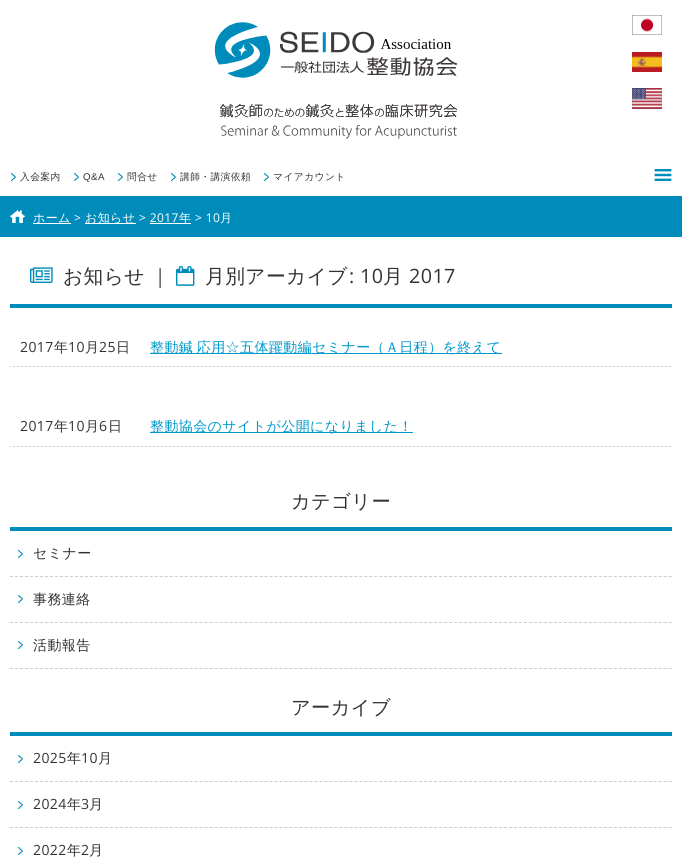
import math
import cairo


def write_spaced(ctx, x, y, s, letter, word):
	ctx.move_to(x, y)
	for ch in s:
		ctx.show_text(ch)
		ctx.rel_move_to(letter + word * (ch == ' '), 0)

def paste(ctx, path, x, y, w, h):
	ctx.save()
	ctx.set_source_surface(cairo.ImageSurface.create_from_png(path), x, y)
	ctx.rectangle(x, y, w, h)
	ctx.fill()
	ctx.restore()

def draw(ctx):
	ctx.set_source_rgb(1, 1, 1)
	ctx.paint()
	paste(ctx, 'media/1.png', 214, 22, 244, 56)
	paste(ctx, 'media/2.png', 632, 15, 30, 20)
	paste(ctx, 'media/3.png', 632, 52, 30, 20)
	paste(ctx, 'media/4.png', 632, 88, 30, 21)
	paste(ctx, 'media/5.png', 220, 104, 237, 35)
	paste(ctx, 'media/6.png', 11, 173, 5, 8)
	ctx.select_font_face('WenQuanYi Zen Hei Medium')
	ctx.set_font_size(9.75)
	ctx.set_source_rgb(0.2, 0.2, 0.2)
	write_spaced(ctx, 20, 180, '入会案内', 0.4, 0)
	paste(ctx, 'media/6.png', 74, 173, 5, 8)
	ctx.select_font_face('Liberation Sans')
	write_spaced(ctx, 83, 180, 'Q&A', 0.4, 0)
	paste(ctx, 'media/6.png', 118, 173, 5, 8)
	ctx.select_font_face('WenQuanYi Zen Hei Medium')
	write_spaced(ctx, 127, 180, '問合せ', 0.4, 0)
	paste(ctx, 'media/6.png', 171, 173, 5, 8)
	write_spaced(ctx, 180, 180, '講師・講演依頼', 0.4, 0)
	paste(ctx, 'media/6.png', 264, 173, 5, 8)
	write_spaced(ctx, 273, 180, 'マイアカウント', 0.4, 0)
	paste(ctx, 'media/7.png', 654, 169, 18, 12)
	ctx.set_source_rgb(0, 0.549, 0.733)
	ctx.rectangle(0, 196, 682, 41)
	ctx.fill()
	paste(ctx, 'media/8.png', 10, 210, 15, 13)
	ctx.set_source_rgb(1, 1, 1)
	ctx.rectangle(33, 223, 38, 1)
	ctx.fill()
	ctx.set_font_size(12)
	write_spaced(ctx, 33, 222, 'ホーム', 0.4, 0)
	ctx.select_font_face('Open Sans')
	write_spaced(ctx, 74, 222, '>', 0.4, 0)
	ctx.rectangle(85, 223, 51, 1)
	ctx.fill()
	ctx.select_font_face('WenQuanYi Zen Hei Medium')
	write_spaced(ctx, 85, 222, 'お知らせ', 0.4, 0)
	ctx.select_font_face('Open Sans')
	write_spaced(ctx, 139, 222, '> 2017', 0.4, 0)
	ctx.rectangle(150, 223, 41, 1)
	ctx.fill()
	ctx.select_font_face('WenQuanYi Zen Hei Medium')
	write_spaced(ctx, 179, 222, '年', 0.4, 0)
	ctx.select_font_face('Open Sans')
	write_spaced(ctx, 195, 222, '> 10', 0.4, 0)
	ctx.select_font_face('WenQuanYi Zen Hei Medium')
	write_spaced(ctx, 220, 222, '月', 0.4, 0)
	ctx.set_source_rgb(0, 0.549, 0.733)
	ctx.rectangle(10, 304, 662, 4)
	ctx.fill()
	paste(ctx, 'media/9.png', 30, 267, 23, 16)
	ctx.set_font_size(19.75)
	ctx.set_source_rgb(0.2, 0.2, 0.2)
	write_spaced(ctx, 63, 283, 'お知らせ ｜', 0.4, -1)
	paste(ctx, 'media/10.png', 176, 266, 19, 20)
	write_spaced(ctx, 205, 283, '月別アーカイブ', 0.4, 0)
	ctx.select_font_face('Open Sans')
	write_spaced(ctx, 349, 283, ': 10', 0.4, 0)
	ctx.select_font_face('WenQuanYi Zen Hei Medium')
	write_spaced(ctx, 383, 283, '月', 0.4, 0)
	ctx.select_font_face('Open Sans')
	write_spaced(ctx, 409, 283, '2017', 0.4, 0)
	paste(ctx, 'media/11.png', 10, 366, 661, 1)
	ctx.set_font_size(14)
	write_spaced(ctx, 20, 352, '2017', 0.4, 0)
	ctx.select_font_face('WenQuanYi Zen Hei Medium')
	write_spaced(ctx, 54, 352, '年', 0.4, 0)
	ctx.select_font_face('Open Sans')
	write_spaced(ctx, 68, 352, '10', 0.4, 0)
	ctx.select_font_face('WenQuanYi Zen Hei Medium')
	write_spaced(ctx, 85, 352, '月', 0.4, 0)
	ctx.select_font_face('Open Sans')
	write_spaced(ctx, 99, 352, '25', 0.4, 0)
	ctx.select_font_face('WenQuanYi Zen Hei Medium')
	write_spaced(ctx, 116, 352, '日', 0.4, 0)
	ctx.set_source_rgb(0, 0.6, 0.8)
	ctx.rectangle(150, 353, 352, 1)
	ctx.fill()
	write_spaced(ctx, 150, 352, '整動鍼 応用☆五体躍動編セミナー（Ａ日程）を終えて', 0.4, -1)
	paste(ctx, 'media/11.png', 10, 446, 661, 1)
	ctx.select_font_face('Open Sans')
	ctx.set_source_rgb(0.2, 0.2, 0.2)
	write_spaced(ctx, 20, 431, '2017', 0.4, 0)
	ctx.select_font_face('WenQuanYi Zen Hei Medium')
	write_spaced(ctx, 54, 431, '年', 0.4, 0)
	ctx.select_font_face('Open Sans')
	write_spaced(ctx, 68, 431, '10', 0.4, 0)
	ctx.select_font_face('WenQuanYi Zen Hei Medium')
	write_spaced(ctx, 85, 431, '月', 0.4, 0)
	ctx.select_font_face('Open Sans')
	write_spaced(ctx, 99, 431, '6', 0.4, 0)
	ctx.select_font_face('WenQuanYi Zen Hei Medium')
	write_spaced(ctx, 108, 431, '日', 0.4, 0)
	ctx.set_source_rgb(0, 0.6, 0.8)
	ctx.rectangle(150, 432, 263, 1)
	ctx.fill()
	write_spaced(ctx, 150, 431, '整動協会のサイトが公開になりました！', 0.4, 0)
	ctx.set_source_rgb(0, 0.549, 0.733)
	ctx.rectangle(10, 527, 662, 4)
	ctx.fill()
	ctx.set_font_size(19.25)
	ctx.set_source_rgb(0.2, 0.2, 0.2)
	write_spaced(ctx, 291, 508, 'カテゴリー', 0.4, 0)
	paste(ctx, 'media/6.png', 18, 550, 5, 8)
	ctx.new_path()
	ctx.move_to(10, 576.5)
	ctx.line_to(672, 576.5)
	ctx.set_source_rgb(0.8, 0.8, 0.8)
	ctx.set_line_width(1)
	ctx.set_dash([3, 1.99])
	ctx.stroke()
	ctx.set_font_size(14)
	ctx.set_source_rgb(0.2, 0.2, 0.2)
	write_spaced(ctx, 33, 558, 'セミナー', 0.4, 0)
	paste(ctx, 'media/6.png', 18, 595, 5, 8)
	ctx.new_path()
	ctx.move_to(10, 622.5)
	ctx.line_to(672, 622.5)
	ctx.set_source_rgb(0.8, 0.8, 0.8)
	ctx.stroke()
	ctx.set_source_rgb(0.2, 0.2, 0.2)
	write_spaced(ctx, 33, 604, '事務連絡', 0.4, 0)
	paste(ctx, 'media/6.png', 18, 641, 5, 8)
	ctx.new_path()
	ctx.move_to(10, 668.5)
	ctx.line_to(672, 668.5)
	ctx.set_source_rgb(0.8, 0.8, 0.8)
	ctx.stroke()
	ctx.set_source_rgb(0.2, 0.2, 0.2)
	write_spaced(ctx, 33, 650, '活動報告', 0.4, 0)
	ctx.set_source_rgb(0, 0.549, 0.733)
	ctx.rectangle(10, 732, 662, 4)
	ctx.fill()
	ctx.set_font_size(19.25)
	ctx.set_source_rgb(0.2, 0.2, 0.2)
	write_spaced(ctx, 291, 714, 'アーカイブ', 0.4, 0)
	paste(ctx, 'media/6.png', 18, 755, 5, 8)
	ctx.new_path()
	ctx.move_to(10, 781.5)
	ctx.line_to(672, 781.5)
	ctx.set_source_rgb(0.8, 0.8, 0.8)
	ctx.stroke()
	ctx.select_font_face('Open Sans')
	ctx.set_font_size(14)
	ctx.set_source_rgb(0.2, 0.2, 0.2)
	write_spaced(ctx, 33, 763, '2025', 0.4, 0)
	ctx.select_font_face('WenQuanYi Zen Hei Medium')
	write_spaced(ctx, 67, 763, '年', 0.4, 0)
	ctx.select_font_face('Open Sans')
	write_spaced(ctx, 81, 763, '10', 0.4, 0)
	ctx.select_font_face('WenQuanYi Zen Hei Medium')
	write_spaced(ctx, 98, 763, '月', 0.4, 0)
	paste(ctx, 'media/6.png', 18, 801, 5, 8)
	ctx.new_path()
	ctx.move_to(10, 827.5)
	ctx.line_to(672, 827.5)
	ctx.set_source_rgb(0.8, 0.8, 0.8)
	ctx.stroke()
	ctx.select_font_face('Open Sans')
	ctx.set_source_rgb(0.2, 0.2, 0.2)
	write_spaced(ctx, 33, 809, '2024', 0.4, 0)
	ctx.select_font_face('WenQuanYi Zen Hei Medium')
	write_spaced(ctx, 67, 809, '年', 0.4, 0)
	ctx.select_font_face('Open Sans')
	write_spaced(ctx, 81, 809, '3', 0.4, 0)
	ctx.select_font_face('WenQuanYi Zen Hei Medium')
	write_spaced(ctx, 89, 809, '月', 0.4, 0)
	paste(ctx, 'media/6.png', 18, 847, 5, 8)
	ctx.select_font_face('Open Sans')
	write_spaced(ctx, 33, 855, '2022', 0.4, 0)
	ctx.select_font_face('WenQuanYi Zen Hei Medium')
	write_spaced(ctx, 67, 855, '年', 0.4, 0)
	ctx.select_font_face('Open Sans')
	write_spaced(ctx, 81, 855, '2', 0.4, 0)
	ctx.select_font_face('WenQuanYi Zen Hei Medium')
	write_spaced(ctx, 89, 855, '月', 0.4, 0)


surface = cairo.ImageSurface(cairo.FORMAT_RGB24, 682, 858)
ctx = cairo.Context(surface)
options = cairo.FontOptions()
options.set_hint_metrics(cairo.HINT_METRICS_OFF)
options.set_hint_style(cairo.HINT_STYLE_NONE)
ctx.set_font_options(options)
ctx.set_miter_limit(4)
draw(ctx)
surface.write_to_png('image.png')
